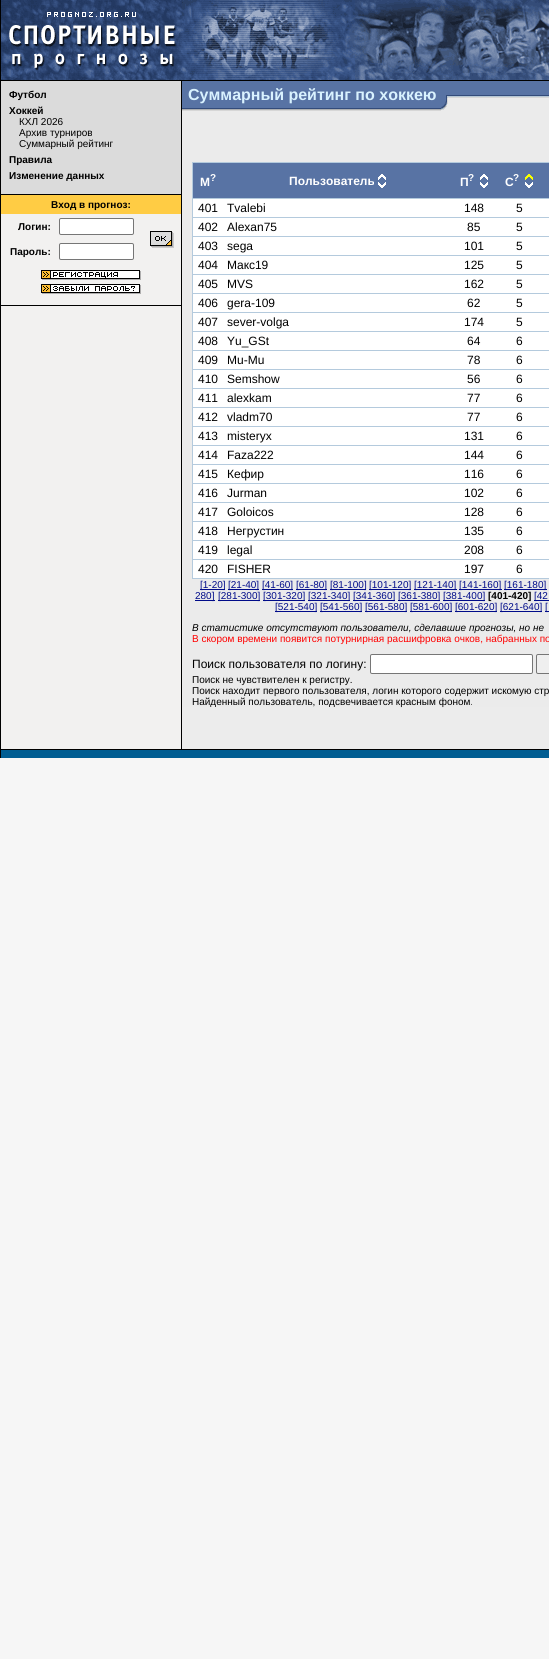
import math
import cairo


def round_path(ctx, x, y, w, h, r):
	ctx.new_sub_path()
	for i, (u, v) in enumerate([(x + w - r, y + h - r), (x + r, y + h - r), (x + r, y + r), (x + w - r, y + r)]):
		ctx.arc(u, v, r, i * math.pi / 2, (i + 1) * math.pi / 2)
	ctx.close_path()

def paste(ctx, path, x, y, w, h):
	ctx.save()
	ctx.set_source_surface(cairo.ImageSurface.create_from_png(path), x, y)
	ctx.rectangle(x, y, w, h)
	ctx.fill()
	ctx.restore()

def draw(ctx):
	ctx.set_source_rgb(0.961, 0.961, 0.961)
	ctx.paint()
	ctx.set_source_rgb(0, 0, 0)
	ctx.rectangle(0, 0, 1, 80)
	ctx.fill()
	paste(ctx, 'media/1.png', 1, 0, 181, 80)
	paste(ctx, 'media/2.png', 182, 0, 173, 80)
	paste(ctx, 'media/3.png', 355, 0, 194, 80)
	ctx.rectangle(0, 80, 549, 1)
	ctx.rectangle(0, 81, 1, 677)
	ctx.fill()
	ctx.set_source_rgb(0.949, 0.945, 0.941)
	ctx.rectangle(1, 214, 180, 535)
	ctx.fill()
	ctx.set_source_rgb(0.859, 0.859, 0.859)
	ctx.rectangle(1, 81, 180, 113)
	ctx.fill()
	ctx.select_font_face('Liberation Sans', cairo.FONT_SLANT_NORMAL, cairo.FONT_WEIGHT_BOLD)
	ctx.set_font_size(10)
	ctx.set_source_rgb(0, 0, 0)
	ctx.move_to(9, 98)
	ctx.show_text('Футбол')
	ctx.move_to(9, 114)
	ctx.show_text('Хоккей')
	ctx.select_font_face('Liberation Sans')
	for x, y, s in [
		(19, 125, 'КХЛ 2026'),
		(19, 136, 'Архив турниров'),
		(19, 147, 'Суммарный рейтинг'),
	]:
		ctx.move_to(x, y)
		ctx.show_text(s)
	ctx.select_font_face('Liberation Sans', cairo.FONT_SLANT_NORMAL, cairo.FONT_WEIGHT_BOLD)
	ctx.move_to(9, 163)
	ctx.show_text('Правила')
	ctx.move_to(9, 179)
	ctx.show_text('Изменение данных')
	ctx.rectangle(1, 194, 180, 1)
	ctx.fill()
	ctx.set_source_rgb(1, 0.8, 0.267)
	ctx.rectangle(1, 195, 180, 19)
	ctx.fill()
	ctx.set_source_rgb(0, 0, 0)
	ctx.move_to(51, 208)
	ctx.show_text('Вход в прогноз:')
	ctx.move_to(18, 230)
	ctx.show_text('Логин:')
	ctx.set_source_rgb(1, 1, 1)
	round_path(ctx, 59.5, 218.5, 74, 16, 1.5)
	ctx.fill_preserve()
	ctx.set_source_rgb(0.463, 0.463, 0.463)
	ctx.set_line_width(1)
	ctx.stroke()
	paste(ctx, 'media/4.png', 150, 231, 24, 17)
	ctx.set_source_rgb(0, 0, 0)
	ctx.move_to(10, 255)
	ctx.show_text('Пароль:')
	ctx.set_source_rgb(1, 1, 1)
	round_path(ctx, 59.5, 243.5, 74, 16, 1.5)
	ctx.fill_preserve()
	ctx.set_source_rgb(0.463, 0.463, 0.463)
	ctx.stroke()
	paste(ctx, 'media/5.png', 41, 270, 100, 10)
	paste(ctx, 'media/6.png', 41, 284, 100, 10)
	ctx.set_source_rgb(0, 0, 0)
	ctx.rectangle(1, 305, 180, 1)
	ctx.rectangle(181, 81, 1, 668)
	ctx.fill()
	ctx.set_source_rgb(0.918, 0.918, 0.918)
	ctx.rectangle(182, 98, 367, 609)
	ctx.fill()
	paste(ctx, 'media/7.png', 182, 81, 259, 30)
	ctx.set_font_size(16)
	ctx.set_source_rgb(0.851, 0.949, 1)
	ctx.move_to(188, 100)
	ctx.show_text('Суммарный рейтинг по хоккею')
	paste(ctx, 'media/8.png', 441, 81, 7, 29)
	paste(ctx, 'media/9.png', 448, 81, 101, 17)
	ctx.set_source_rgb(0.706, 0.792, 0.867)
	ctx.rectangle(192, 162, 357, 417)
	ctx.fill()
	ctx.set_source_rgb(0.345, 0.451, 0.643)
	ctx.rectangle(193, 163, 356, 35)
	ctx.fill()
	ctx.set_font_size(12)
	ctx.set_source_rgb(1, 1, 1)
	ctx.move_to(200, 186)
	ctx.show_text('М')
	ctx.set_font_size(10)
	ctx.move_to(210, 181)
	ctx.show_text('?')
	ctx.set_font_size(12)
	ctx.move_to(289, 185)
	ctx.show_text('Пользователь')
	paste(ctx, 'media/10.png', 378, 174, 8, 6)
	paste(ctx, 'media/11.png', 378, 182, 8, 6)
	ctx.move_to(460, 186)
	ctx.show_text('П')
	ctx.set_font_size(10)
	ctx.move_to(468, 181)
	ctx.show_text('?')
	paste(ctx, 'media/10.png', 480, 174, 8, 6)
	paste(ctx, 'media/11.png', 480, 182, 8, 6)
	ctx.set_font_size(12)
	ctx.move_to(505, 186)
	ctx.show_text('С')
	ctx.set_font_size(10)
	ctx.move_to(513, 181)
	ctx.show_text('?')
	paste(ctx, 'media/12.png', 525, 174, 8, 6)
	paste(ctx, 'media/11.png', 525, 182, 8, 6)
	ctx.rectangle(193, 199, 356, 18)
	ctx.fill()
	ctx.select_font_face('Liberation Sans')
	ctx.set_font_size(12)
	ctx.set_source_rgb(0, 0, 0)
	for x, y, s in [
		(198, 212, '401'),
		(227, 212, 'Tvalebi'),
		(464, 212, '148'),
		(516, 212, '5'),
	]:
		ctx.move_to(x, y)
		ctx.show_text(s)
	ctx.set_source_rgb(1, 1, 1)
	ctx.rectangle(193, 218, 356, 18)
	ctx.fill()
	ctx.set_source_rgb(0, 0, 0)
	for x, y, s in [
		(198, 231, '402'),
		(227, 231, 'Alexan75'),
		(467, 231, '85'),
		(516, 231, '5'),
	]:
		ctx.move_to(x, y)
		ctx.show_text(s)
	ctx.set_source_rgb(1, 1, 1)
	ctx.rectangle(193, 237, 356, 18)
	ctx.fill()
	ctx.set_source_rgb(0, 0, 0)
	for x, y, s in [
		(198, 250, '403'),
		(227, 250, 'sega'),
		(464, 250, '101'),
		(516, 250, '5'),
	]:
		ctx.move_to(x, y)
		ctx.show_text(s)
	ctx.set_source_rgb(1, 1, 1)
	ctx.rectangle(193, 256, 356, 18)
	ctx.fill()
	ctx.set_source_rgb(0, 0, 0)
	for x, y, s in [
		(198, 269, '404'),
		(227, 269, 'Макс19'),
		(464, 269, '125'),
		(516, 269, '5'),
	]:
		ctx.move_to(x, y)
		ctx.show_text(s)
	ctx.set_source_rgb(1, 1, 1)
	ctx.rectangle(193, 275, 356, 18)
	ctx.fill()
	ctx.set_source_rgb(0, 0, 0)
	for x, y, s in [
		(198, 288, '405'),
		(227, 288, 'MVS'),
		(464, 288, '162'),
		(516, 288, '5'),
	]:
		ctx.move_to(x, y)
		ctx.show_text(s)
	ctx.set_source_rgb(1, 1, 1)
	ctx.rectangle(193, 294, 356, 18)
	ctx.fill()
	ctx.set_source_rgb(0, 0, 0)
	for x, y, s in [
		(198, 307, '406'),
		(227, 307, 'gera-109'),
		(467, 307, '62'),
		(516, 307, '5'),
	]:
		ctx.move_to(x, y)
		ctx.show_text(s)
	ctx.set_source_rgb(1, 1, 1)
	ctx.rectangle(193, 313, 356, 18)
	ctx.fill()
	ctx.set_source_rgb(0, 0, 0)
	for x, y, s in [
		(198, 326, '407'),
		(227, 326, 'sever-volga'),
		(464, 326, '174'),
		(516, 326, '5'),
	]:
		ctx.move_to(x, y)
		ctx.show_text(s)
	ctx.set_source_rgb(1, 1, 1)
	ctx.rectangle(193, 332, 356, 18)
	ctx.fill()
	ctx.set_source_rgb(0, 0, 0)
	for x, y, s in [
		(198, 345, '408'),
		(227, 345, 'Yu_GSt'),
		(467, 345, '64'),
		(516, 345, '6'),
	]:
		ctx.move_to(x, y)
		ctx.show_text(s)
	ctx.set_source_rgb(1, 1, 1)
	ctx.rectangle(193, 351, 356, 18)
	ctx.fill()
	ctx.set_source_rgb(0, 0, 0)
	for x, y, s in [
		(198, 364, '409'),
		(227, 364, 'Mu-Mu'),
		(467, 364, '78'),
		(516, 364, '6'),
	]:
		ctx.move_to(x, y)
		ctx.show_text(s)
	ctx.set_source_rgb(1, 1, 1)
	ctx.rectangle(193, 370, 356, 18)
	ctx.fill()
	ctx.set_source_rgb(0, 0, 0)
	for x, y, s in [
		(198, 383, '410'),
		(227, 383, 'Semshow'),
		(467, 383, '56'),
		(516, 383, '6'),
	]:
		ctx.move_to(x, y)
		ctx.show_text(s)
	ctx.set_source_rgb(1, 1, 1)
	ctx.rectangle(193, 389, 356, 18)
	ctx.fill()
	ctx.set_source_rgb(0, 0, 0)
	for x, y, s in [
		(198, 402, '411'),
		(227, 402, 'alexkam'),
		(467, 402, '77'),
		(516, 402, '6'),
	]:
		ctx.move_to(x, y)
		ctx.show_text(s)
	ctx.set_source_rgb(1, 1, 1)
	ctx.rectangle(193, 408, 356, 18)
	ctx.fill()
	ctx.set_source_rgb(0, 0, 0)
	for x, y, s in [
		(198, 421, '412'),
		(227, 421, 'vladm70'),
		(467, 421, '77'),
		(516, 421, '6'),
	]:
		ctx.move_to(x, y)
		ctx.show_text(s)
	ctx.set_source_rgb(1, 1, 1)
	ctx.rectangle(193, 427, 356, 18)
	ctx.fill()
	ctx.set_source_rgb(0, 0, 0)
	for x, y, s in [
		(198, 440, '413'),
		(227, 440, 'misteryx'),
		(464, 440, '131'),
		(516, 440, '6'),
	]:
		ctx.move_to(x, y)
		ctx.show_text(s)
	ctx.set_source_rgb(1, 1, 1)
	ctx.rectangle(193, 446, 356, 18)
	ctx.fill()
	ctx.set_source_rgb(0, 0, 0)
	for x, y, s in [
		(198, 459, '414'),
		(227, 459, 'Faza222'),
		(464, 459, '144'),
		(516, 459, '6'),
	]:
		ctx.move_to(x, y)
		ctx.show_text(s)
	ctx.set_source_rgb(1, 1, 1)
	ctx.rectangle(193, 465, 356, 18)
	ctx.fill()
	ctx.set_source_rgb(0, 0, 0)
	for x, y, s in [
		(198, 478, '415'),
		(227, 478, 'Кефир'),
		(464, 478, '116'),
		(516, 478, '6'),
	]:
		ctx.move_to(x, y)
		ctx.show_text(s)
	ctx.set_source_rgb(1, 1, 1)
	ctx.rectangle(193, 484, 356, 18)
	ctx.fill()
	ctx.set_source_rgb(0, 0, 0)
	for x, y, s in [
		(198, 497, '416'),
		(227, 497, 'Jurman'),
		(464, 497, '102'),
		(516, 497, '6'),
	]:
		ctx.move_to(x, y)
		ctx.show_text(s)
	ctx.set_source_rgb(1, 1, 1)
	ctx.rectangle(193, 503, 356, 18)
	ctx.fill()
	ctx.set_source_rgb(0, 0, 0)
	for x, y, s in [
		(198, 516, '417'),
		(227, 516, 'Goloicos'),
		(464, 516, '128'),
		(516, 516, '6'),
	]:
		ctx.move_to(x, y)
		ctx.show_text(s)
	ctx.set_source_rgb(1, 1, 1)
	ctx.rectangle(193, 522, 356, 18)
	ctx.fill()
	ctx.set_source_rgb(0, 0, 0)
	for x, y, s in [
		(198, 535, '418'),
		(227, 535, 'Негрустин'),
		(464, 535, '135'),
		(516, 535, '6'),
	]:
		ctx.move_to(x, y)
		ctx.show_text(s)
	ctx.set_source_rgb(1, 1, 1)
	ctx.rectangle(193, 541, 356, 18)
	ctx.fill()
	ctx.set_source_rgb(0, 0, 0)
	for x, y, s in [
		(198, 554, '419'),
		(227, 554, 'legal'),
		(464, 554, '208'),
		(516, 554, '6'),
	]:
		ctx.move_to(x, y)
		ctx.show_text(s)
	ctx.set_source_rgb(1, 1, 1)
	ctx.rectangle(193, 560, 356, 18)
	ctx.fill()
	ctx.set_source_rgb(0, 0, 0)
	for x, y, s in [
		(198, 573, '420'),
		(227, 573, 'FISHER'),
		(464, 573, '197'),
		(516, 573, '6'),
	]:
		ctx.move_to(x, y)
		ctx.show_text(s)
	ctx.set_source_rgb(0, 0.043, 0.537)
	ctx.rectangle(200, 589, 25, 1)
	ctx.fill()
	ctx.set_font_size(10)
	ctx.move_to(200, 588)
	ctx.show_text('[1-20]')
	ctx.rectangle(228, 589, 31, 1)
	ctx.fill()
	ctx.move_to(228, 588)
	ctx.show_text('[21-40]')
	ctx.rectangle(262, 589, 31, 1)
	ctx.fill()
	ctx.move_to(262, 588)
	ctx.show_text('[41-60]')
	ctx.rectangle(296, 589, 31, 1)
	ctx.fill()
	ctx.move_to(296, 588)
	ctx.show_text('[61-80]')
	ctx.rectangle(330, 589, 36, 1)
	ctx.fill()
	ctx.move_to(330, 588)
	ctx.show_text('[81-100]')
	ctx.rectangle(369, 589, 42, 1)
	ctx.fill()
	ctx.move_to(369, 588)
	ctx.show_text('[101-120]')
	ctx.rectangle(414, 589, 43, 1)
	ctx.fill()
	ctx.move_to(414, 588)
	ctx.show_text('[121-140]')
	ctx.rectangle(459, 589, 43, 1)
	ctx.fill()
	ctx.move_to(459, 588)
	ctx.show_text('[141-160]')
	ctx.rectangle(504, 589, 43, 1)
	ctx.fill()
	ctx.move_to(504, 588)
	ctx.show_text('[161-180]')
	ctx.rectangle(195, 600, 20, 1)
	ctx.fill()
	ctx.move_to(195, 599)
	ctx.show_text('280]')
	ctx.rectangle(218, 600, 42, 1)
	ctx.fill()
	ctx.move_to(218, 599)
	ctx.show_text('[281-300]')
	ctx.rectangle(263, 600, 42, 1)
	ctx.fill()
	ctx.move_to(263, 599)
	ctx.show_text('[301-320]')
	ctx.rectangle(308, 600, 42, 1)
	ctx.fill()
	ctx.move_to(308, 599)
	ctx.show_text('[321-340]')
	ctx.rectangle(353, 600, 42, 1)
	ctx.fill()
	ctx.move_to(353, 599)
	ctx.show_text('[341-360]')
	ctx.rectangle(398, 600, 42, 1)
	ctx.fill()
	ctx.move_to(398, 599)
	ctx.show_text('[361-380]')
	ctx.rectangle(443, 600, 42, 1)
	ctx.fill()
	ctx.move_to(443, 599)
	ctx.show_text('[381-400]')
	ctx.select_font_face('Liberation Sans', cairo.FONT_SLANT_NORMAL, cairo.FONT_WEIGHT_BOLD)
	ctx.set_source_rgb(0, 0, 0)
	ctx.move_to(488, 599)
	ctx.show_text('[401-420]')
	ctx.set_source_rgb(0, 0.043, 0.537)
	ctx.rectangle(534, 600, 15, 1)
	ctx.fill()
	ctx.select_font_face('Liberation Sans')
	ctx.move_to(534, 599)
	ctx.show_text('[42')
	ctx.rectangle(275, 611, 42, 1)
	ctx.fill()
	ctx.move_to(275, 610)
	ctx.show_text('[521-540]')
	ctx.rectangle(320, 611, 42, 1)
	ctx.fill()
	ctx.move_to(320, 610)
	ctx.show_text('[541-560]')
	ctx.rectangle(365, 611, 42, 1)
	ctx.fill()
	ctx.move_to(365, 610)
	ctx.show_text('[561-580]')
	ctx.rectangle(410, 611, 42, 1)
	ctx.fill()
	ctx.move_to(410, 610)
	ctx.show_text('[581-600]')
	ctx.rectangle(455, 611, 42, 1)
	ctx.fill()
	ctx.move_to(455, 610)
	ctx.show_text('[601-620]')
	ctx.rectangle(500, 611, 42, 1)
	ctx.fill()
	ctx.move_to(500, 610)
	ctx.show_text('[621-640]')
	ctx.rectangle(545, 611, 4, 1)
	ctx.fill()
	ctx.move_to(545, 610)
	ctx.show_text('[')
	ctx.select_font_face('Liberation Sans', cairo.FONT_SLANT_ITALIC)
	ctx.set_source_rgb(0, 0, 0)
	ctx.move_to(192, 631)
	ctx.show_text('В статистике отсутствуют пользователи, сделавшие прогнозы, но не')
	ctx.select_font_face('Liberation Sans')
	ctx.set_source_rgb(1, 0, 0)
	ctx.move_to(192, 642)
	ctx.show_text('В скором времени появится потурнирная расшифровка очков, набранных по')
	ctx.set_font_size(12)
	ctx.set_source_rgb(0, 0, 0)
	ctx.move_to(192, 668)
	ctx.show_text('Поиск пользователя по логину:')
	ctx.set_source_rgb(1, 1, 1)
	round_path(ctx, 370.5, 654.5, 162, 19, 1.5)
	ctx.fill_preserve()
	ctx.set_source_rgb(0.463, 0.463, 0.463)
	ctx.stroke()
	ctx.set_source_rgb(0.937, 0.937, 0.937)
	round_path(ctx, 536.5, 654.5, 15, 19, 1.5)
	ctx.fill_preserve()
	ctx.set_source_rgb(0.463, 0.463, 0.463)
	ctx.stroke()
	ctx.set_font_size(10)
	ctx.set_source_rgb(0, 0, 0)
	ctx.move_to(192, 683)
	ctx.show_text('Поиск не чувствителен к регистру.')
	ctx.move_to(192, 694)
	ctx.show_text('Поиск находит первого пользователя, логин которого содержит искомую стр')
	ctx.set_source_rgb(0.925, 0.925, 0.925)
	ctx.rectangle(182, 707, 367, 42)
	ctx.fill()
	ctx.set_source_rgb(0, 0, 0)
	ctx.move_to(192, 705)
	ctx.show_text('Найденный пользователь, подсвечивается красным фоном.')
	ctx.rectangle(1, 749, 548, 1)
	ctx.fill()
	ctx.set_source_rgb(0, 0.365, 0.573)
	ctx.rectangle(1, 750, 548, 8)
	ctx.fill()


surface = cairo.ImageSurface(cairo.FORMAT_RGB24, 549, 1659)
ctx = cairo.Context(surface)
options = cairo.FontOptions()
options.set_hint_metrics(cairo.HINT_METRICS_OFF)
options.set_hint_style(cairo.HINT_STYLE_NONE)
ctx.set_font_options(options)
ctx.set_miter_limit(4)
draw(ctx)
surface.write_to_png('image.png')
